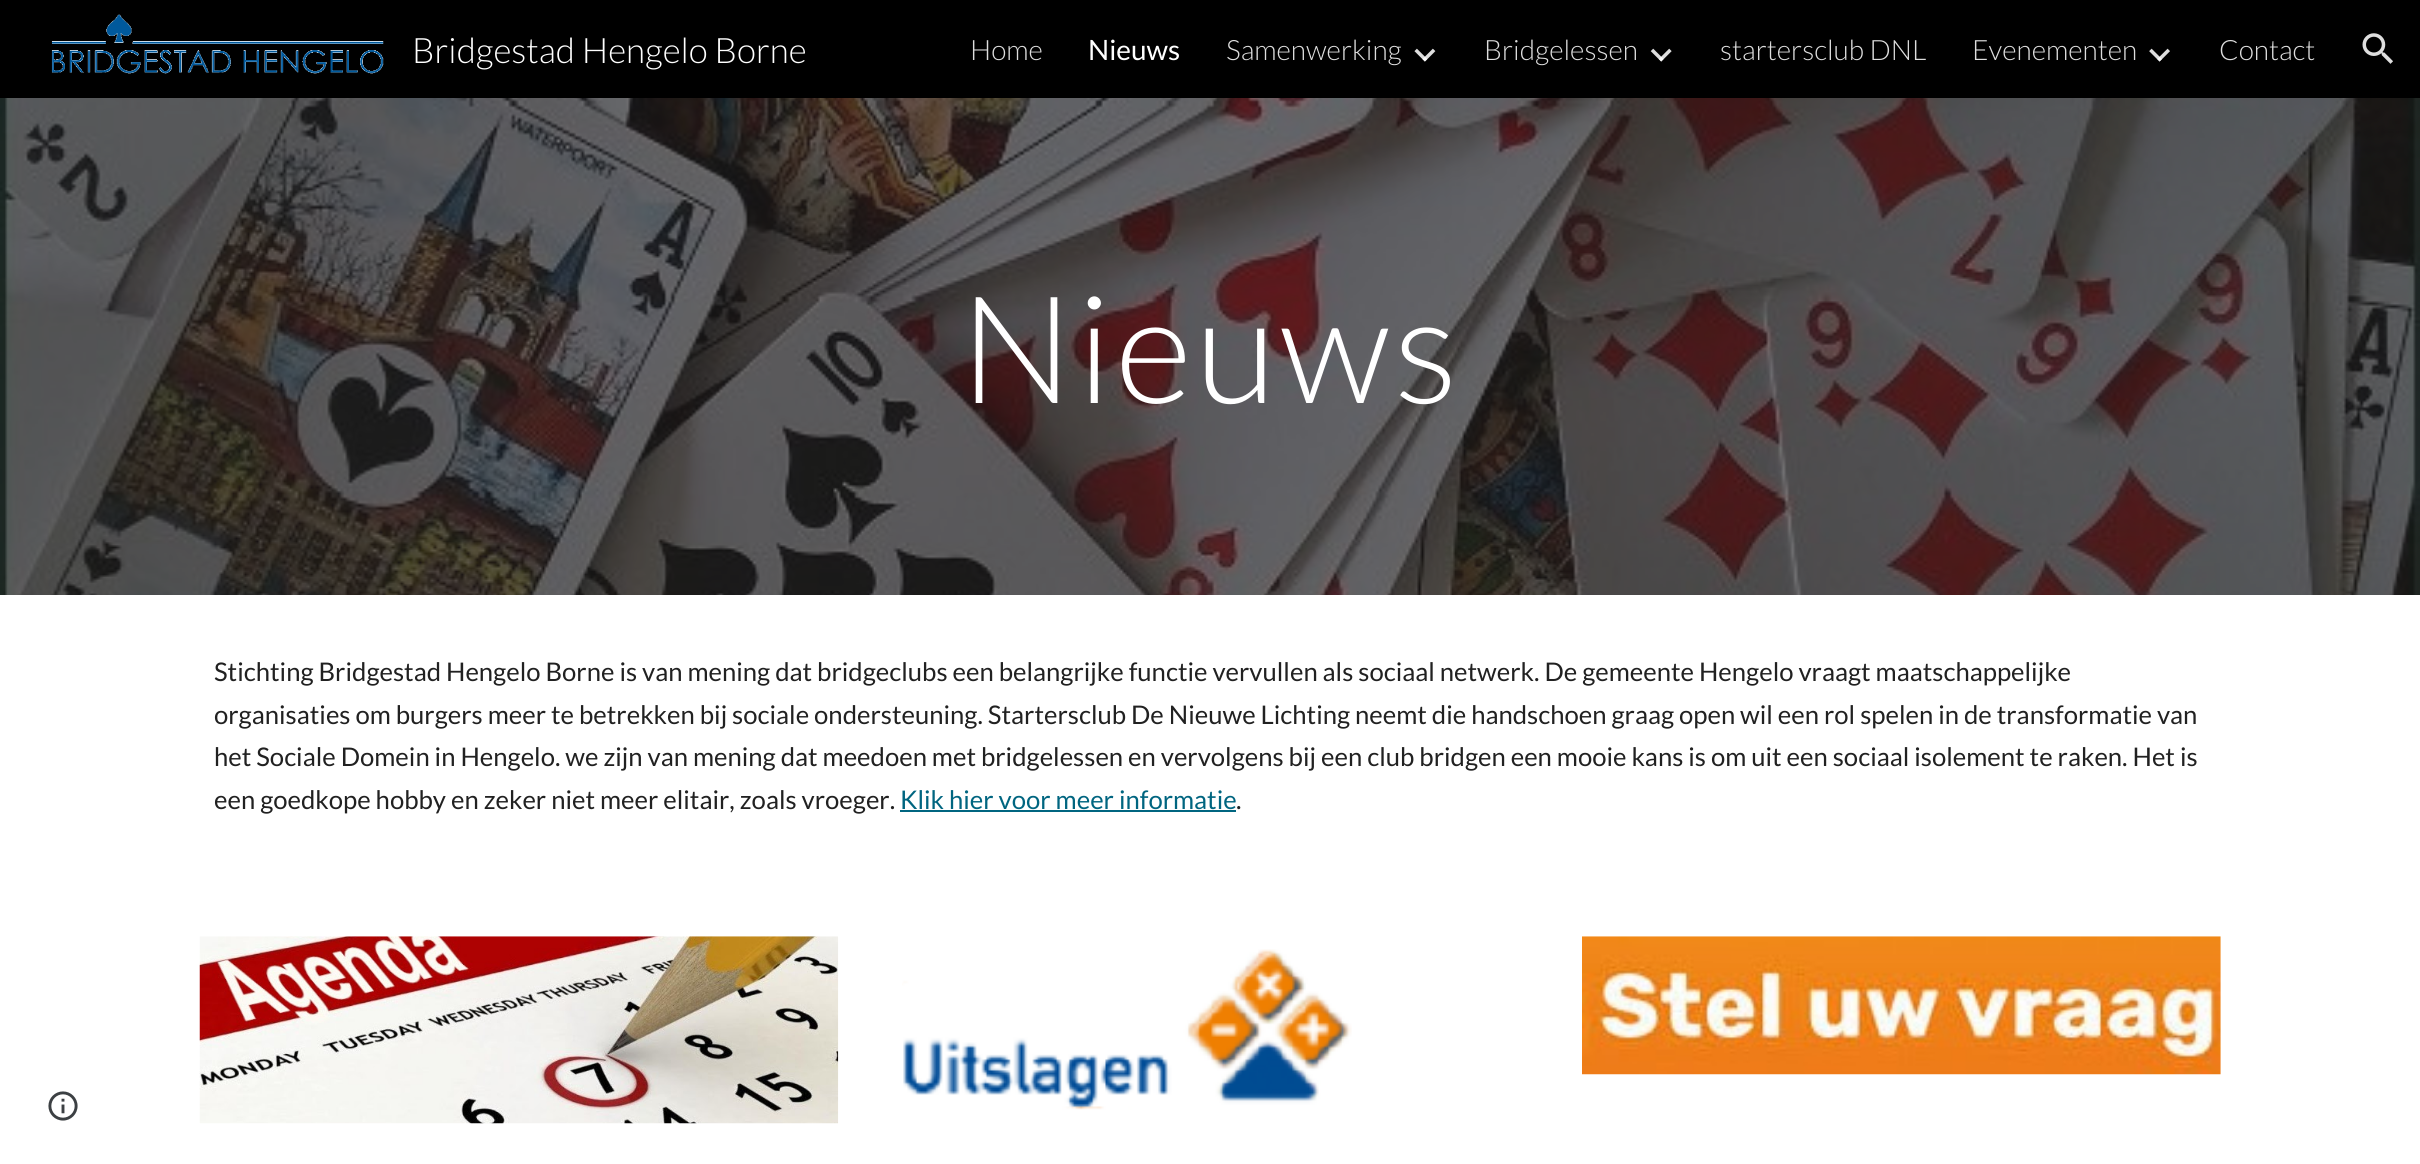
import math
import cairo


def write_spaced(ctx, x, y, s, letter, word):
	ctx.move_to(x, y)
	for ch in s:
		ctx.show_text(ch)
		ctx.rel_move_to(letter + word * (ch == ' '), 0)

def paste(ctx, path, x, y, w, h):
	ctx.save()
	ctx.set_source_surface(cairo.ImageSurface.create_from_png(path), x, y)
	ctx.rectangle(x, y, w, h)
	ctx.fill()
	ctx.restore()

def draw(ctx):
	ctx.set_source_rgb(1, 1, 1)
	ctx.paint()
	ctx.set_source_rgb(0, 0, 0)
	ctx.rectangle(0, 0, 2420, 98)
	ctx.fill()
	paste(ctx, 'media/1.png', 51, 14, 333, 60)
	ctx.select_font_face('Lato Light')
	ctx.set_font_size(35)
	ctx.set_source_rgb(1, 1, 1)
	ctx.move_to(412, 63)
	ctx.show_text('Bridgestad Hengelo Borne')
	ctx.set_font_size(28)
	ctx.set_source_rgb(0.871, 0.871, 0.871)
	ctx.move_to(970, 60)
	ctx.show_text('Home')
	ctx.select_font_face('Lato')
	ctx.set_source_rgb(1, 1, 1)
	ctx.move_to(1088, 60)
	ctx.show_text('Nieuws')
	ctx.select_font_face('Lato Light')
	ctx.set_source_rgb(0.871, 0.871, 0.871)
	ctx.move_to(1226, 60)
	ctx.show_text('Samenwerking')
	paste(ctx, 'media/2.png', 1414, 48, 22, 14)
	ctx.move_to(1484, 60)
	ctx.show_text('Bridgelessen')
	paste(ctx, 'media/3.png', 1650, 48, 22, 14)
	ctx.move_to(1720, 60)
	ctx.show_text('startersclub DNL')
	ctx.move_to(1972, 60)
	ctx.show_text('Evenementen')
	paste(ctx, 'media/4.png', 2149, 48, 21, 14)
	ctx.move_to(2219, 60)
	ctx.show_text('Contact')
	paste(ctx, 'media/5.png', 2362, 33, 31, 31)
	paste(ctx, 'media/6.png', 0, 98, 2420, 497)
	ctx.set_font_size(149.5)
	ctx.set_source_rgb(1, 1, 1)
	write_spaced(ctx, 960, 403, 'Nieuws', 3.5, 0)
	ctx.select_font_face('Lato')
	ctx.set_font_size(25.67)
	ctx.set_source_rgb(0.129, 0.129, 0.129)
	for x, y, s in [
		(214, 681, 'Stichting Bridgestad Hengelo Borne is van mening dat bridgeclubs een belangrijke functie vervullen als sociaal netwerk. De gemeente Hengelo vraagt maatschappelijke'),
		(214, 724, 'organisaties om burgers meer te betrekken bij sociale ondersteuning. Startersclub De Nieuwe Lichting neemt die handschoen graag open wil een rol spelen in de transformatie van'),
		(214, 766, 'het Sociale Domein in Hengelo. we zijn van mening dat meedoen met bridgelessen en vervolgens bij een club bridgen een mooie kans is om uit een sociaal isolement te raken. Het is'),
		(214, 809, 'een goedkope hobby en zeker niet meer elitair, zoals vroeger.'),
	]:
		ctx.move_to(x, y)
		ctx.show_text(s)
	ctx.set_source_rgb(0, 0.396, 0.502)
	ctx.move_to(900, 809)
	ctx.show_text('Klik hier voor meer informatie')
	ctx.rectangle(900, 810, 336, 2)
	ctx.fill()
	ctx.set_source_rgb(0.129, 0.129, 0.129)
	ctx.move_to(1236, 809)
	ctx.show_text('.')
	paste(ctx, 'media/7.png', 48, 1091, 30, 30)
	paste(ctx, 'media/8.png', 199, 936, 640, 188)
	paste(ctx, 'media/9.png', 902, 949, 450, 161)
	paste(ctx, 'media/10.png', 1582, 936, 639, 139)


surface = cairo.ImageSurface(cairo.FORMAT_RGB24, 2420, 1164)
ctx = cairo.Context(surface)
options = cairo.FontOptions()
options.set_hint_metrics(cairo.HINT_METRICS_OFF)
options.set_hint_style(cairo.HINT_STYLE_NONE)
ctx.set_font_options(options)
ctx.set_miter_limit(4)
draw(ctx)
surface.write_to_png('image.png')
